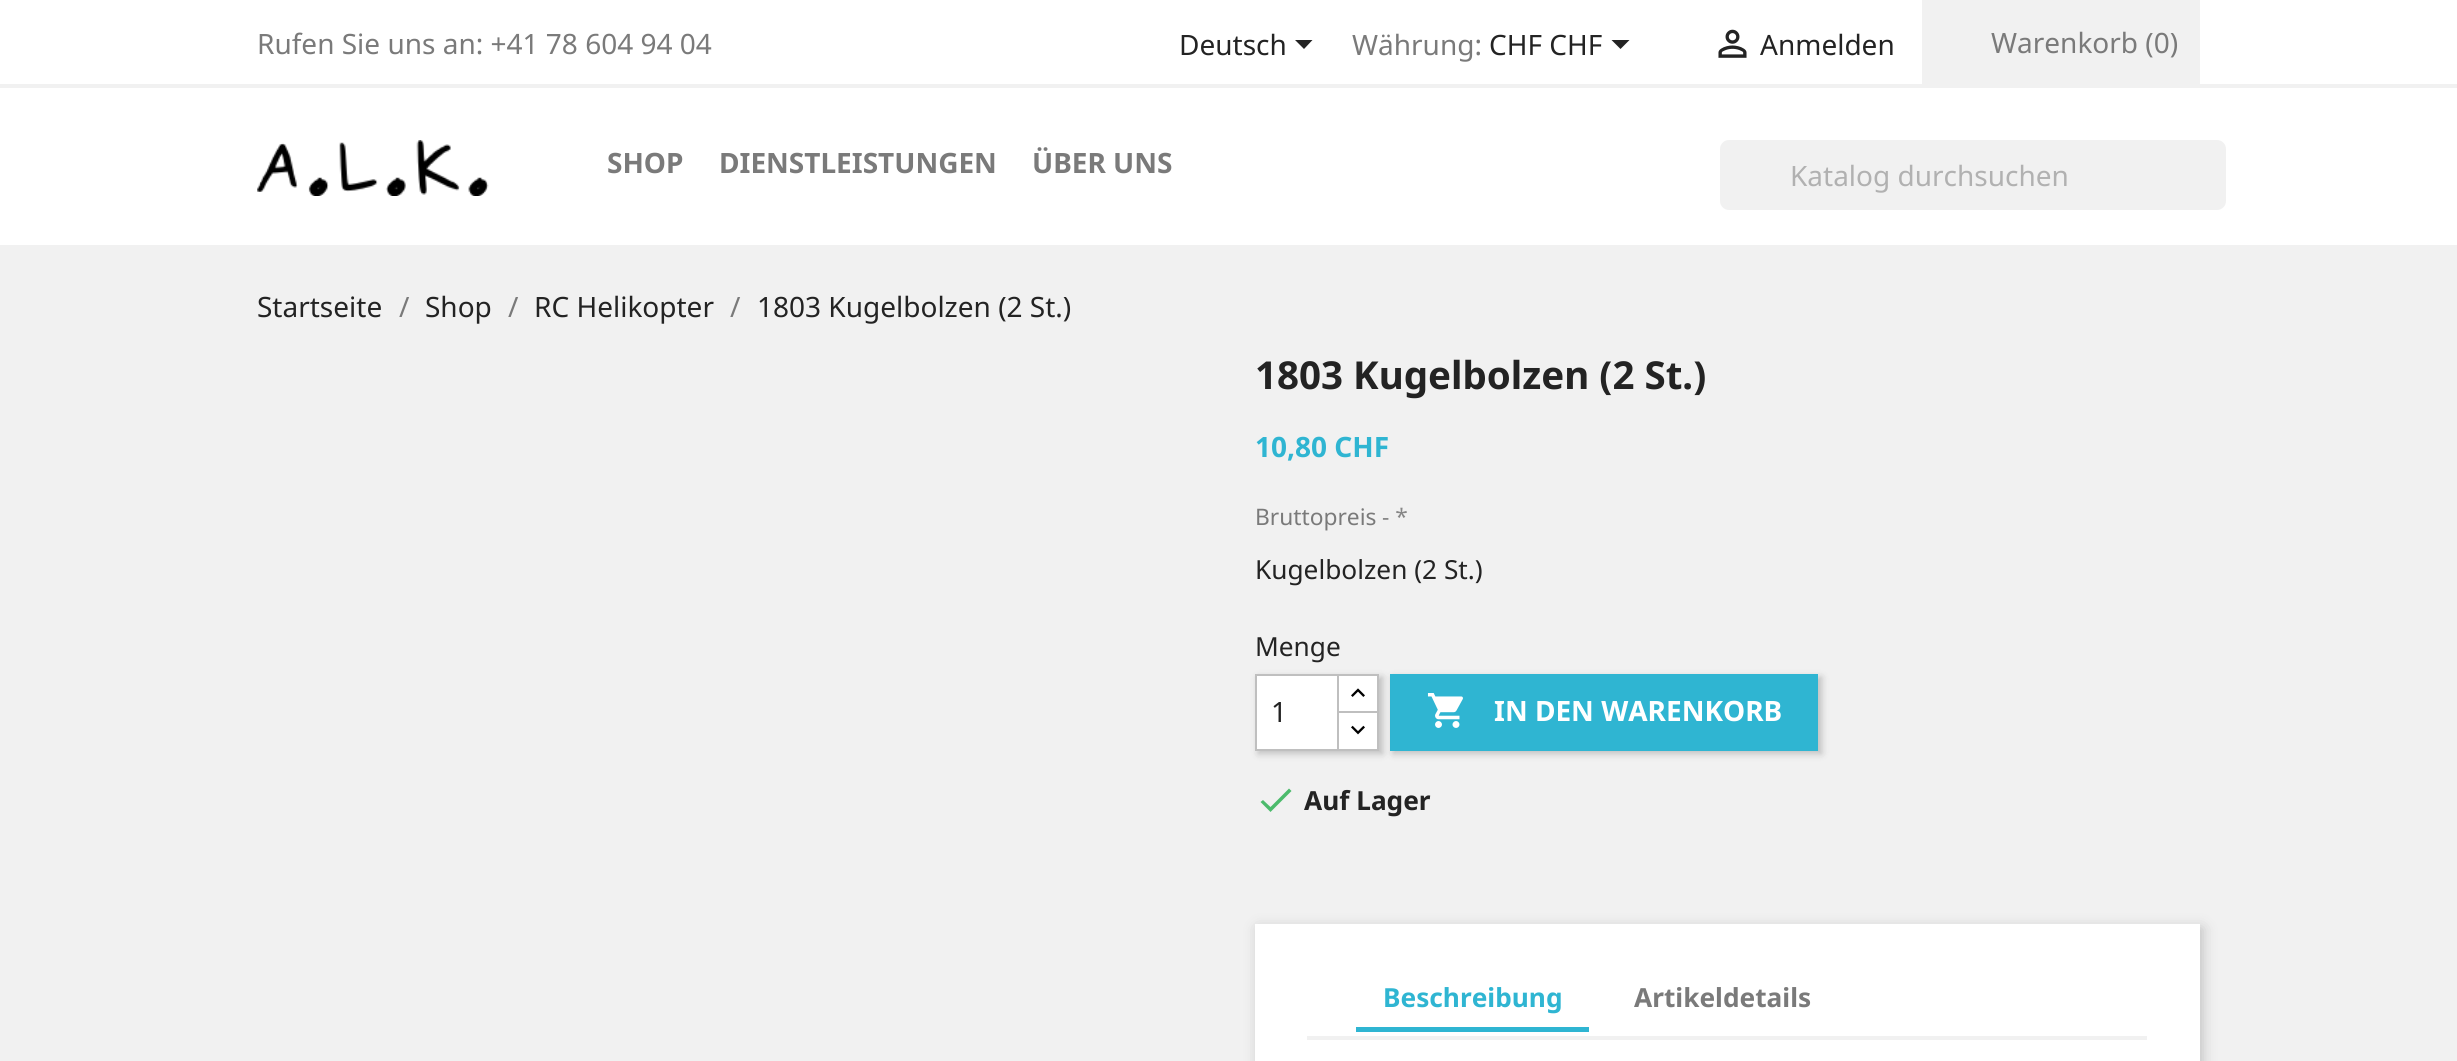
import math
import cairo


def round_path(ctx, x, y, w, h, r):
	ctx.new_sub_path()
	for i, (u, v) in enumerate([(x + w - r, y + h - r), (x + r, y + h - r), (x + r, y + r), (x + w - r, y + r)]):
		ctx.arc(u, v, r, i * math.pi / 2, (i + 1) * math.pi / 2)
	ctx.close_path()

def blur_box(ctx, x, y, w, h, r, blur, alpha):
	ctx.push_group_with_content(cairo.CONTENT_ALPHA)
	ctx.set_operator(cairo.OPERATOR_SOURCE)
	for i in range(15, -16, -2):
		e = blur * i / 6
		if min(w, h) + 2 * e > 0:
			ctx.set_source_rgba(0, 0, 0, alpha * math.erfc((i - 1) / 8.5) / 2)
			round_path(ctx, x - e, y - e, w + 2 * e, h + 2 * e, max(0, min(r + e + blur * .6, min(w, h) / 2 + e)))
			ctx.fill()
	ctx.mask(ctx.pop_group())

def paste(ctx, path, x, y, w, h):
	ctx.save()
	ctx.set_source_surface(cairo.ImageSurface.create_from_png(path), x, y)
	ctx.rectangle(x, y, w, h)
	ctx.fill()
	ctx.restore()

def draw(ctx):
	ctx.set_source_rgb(1, 1, 1)
	ctx.paint()
	ctx.set_source_rgb(0.945, 0.945, 0.945)
	ctx.rectangle(0, 84, 2457, 4)
	ctx.fill()
	ctx.select_font_face('Noto Sans')
	ctx.set_font_size(28)
	ctx.set_source_rgb(0.478, 0.478, 0.478)
	ctx.move_to(257, 54)
	ctx.show_text('Rufen Sie uns an: +41 78 604 94 04')
	ctx.set_source_rgb(0.137, 0.137, 0.137)
	ctx.move_to(1179, 55)
	ctx.show_text('Deutsch')
	ctx.new_path()
	ctx.move_to(1295, 40)
	ctx.line_to(1312.5, 40)
	ctx.line_to(1304, 49)
	ctx.close_path()
	ctx.fill()
	ctx.set_source_rgb(0.478, 0.478, 0.478)
	ctx.move_to(1352, 55)
	ctx.show_text('Währung:')
	ctx.set_source_rgb(0.137, 0.137, 0.137)
	ctx.move_to(1489, 55)
	ctx.show_text('CHF CHF')
	ctx.new_path()
	ctx.move_to(1611.5, 40)
	ctx.line_to(1629.5, 40)
	ctx.line_to(1620.5, 49)
	ctx.close_path()
	ctx.fill()
	paste(ctx, 'media/1.png', 1718, 29, 29, 29)
	ctx.move_to(1760, 55)
	ctx.show_text('Anmelden')
	ctx.set_source_rgb(0.945, 0.945, 0.945)
	ctx.rectangle(1922, 0, 278, 84)
	ctx.fill()
	ctx.set_source_rgb(0.478, 0.478, 0.478)
	ctx.move_to(1991, 53)
	ctx.show_text('Warenkorb (0)')
	paste(ctx, 'media/2.png', 257, 140, 232, 56)
	ctx.select_font_face('Noto Sans', cairo.FONT_SLANT_NORMAL, cairo.FONT_WEIGHT_BOLD)
	for x, y, s in [
		(607, 173, 'SHOP'),
		(719, 173, 'DIENSTLEISTUNGEN'),
		(1032, 173, 'ÜBER UNS'),
	]:
		ctx.move_to(x, y)
		ctx.show_text(s)
	ctx.set_source_rgb(0.945, 0.945, 0.945)
	round_path(ctx, 1720, 140, 506, 70, 9)
	ctx.fill()
	ctx.select_font_face('Noto Sans')
	ctx.set_source_rgb(0.694, 0.694, 0.694)
	ctx.move_to(1790, 186)
	ctx.show_text('Katalog durchsuchen')
	ctx.set_source_rgb(0.945, 0.945, 0.945)
	ctx.rectangle(0, 245, 2457, 816)
	ctx.fill()
	ctx.set_source_rgb(0.137, 0.137, 0.137)
	ctx.move_to(257, 317)
	ctx.show_text('Startseite')
	ctx.set_source_rgb(0.478, 0.478, 0.478)
	ctx.move_to(399, 317)
	ctx.show_text('/')
	ctx.set_source_rgb(0.137, 0.137, 0.137)
	ctx.move_to(425, 317)
	ctx.show_text('Shop')
	ctx.set_source_rgb(0.478, 0.478, 0.478)
	ctx.move_to(508, 317)
	ctx.show_text('/')
	ctx.set_source_rgb(0.137, 0.137, 0.137)
	ctx.move_to(534, 317)
	ctx.show_text('RC Helikopter')
	ctx.set_source_rgb(0.478, 0.478, 0.478)
	ctx.move_to(730, 317)
	ctx.show_text('/')
	ctx.set_source_rgb(0.137, 0.137, 0.137)
	ctx.move_to(757, 317)
	ctx.show_text('1803 Kugelbolzen (2 St.)')
	ctx.select_font_face('Noto Sans', cairo.FONT_SLANT_NORMAL, cairo.FONT_WEIGHT_BOLD)
	ctx.set_font_size(38.5)
	ctx.move_to(1255, 389)
	ctx.show_text('1803 Kugelbolzen (2 St.)')
	ctx.set_font_size(28)
	ctx.set_source_rgb(0.184, 0.71, 0.824)
	ctx.move_to(1255, 457)
	ctx.show_text('10,80 CHF')
	ctx.select_font_face('Noto Sans')
	ctx.set_font_size(22.75)
	ctx.set_source_rgb(0.478, 0.478, 0.478)
	ctx.move_to(1255, 525)
	ctx.show_text('Bruttopreis')
	ctx.set_source_rgb(0.529, 0.529, 0.529)
	ctx.move_to(1382, 525)
	ctx.show_text('- *')
	ctx.set_font_size(26.25)
	ctx.set_source_rgb(0.137, 0.137, 0.137)
	ctx.move_to(1255, 579)
	ctx.show_text('Kugelbolzen (2 St.)')
	ctx.move_to(1255, 656)
	ctx.show_text('Menge')
	ctx.set_source_rgb(0, 0, 0)
	blur_box(ctx, 1393, 677, 429, 77, 0, 3.5, 0.2)
	ctx.set_source_rgb(0.184, 0.71, 0.824)
	ctx.rectangle(1390, 674, 428, 77)
	ctx.fill()
	ctx.set_source_rgb(0, 0, 0)
	blur_box(ctx, 1258, 677, 125, 77, 0, 3.5, 0.2)
	ctx.set_source_rgb(1, 1, 1)
	ctx.rectangle(1339, 676, 38, 35)
	ctx.fill()
	ctx.rectangle(1338, 675, 40, 38)
	ctx.set_source_rgb(0.749, 0.749, 0.749)
	ctx.stroke()
	ctx.set_source_rgb(1, 1, 1)
	ctx.rectangle(1338, 712, 40, 38)
	ctx.fill_preserve()
	ctx.set_source_rgb(0.749, 0.749, 0.749)
	ctx.stroke()
	ctx.set_source_rgb(1, 1, 1)
	ctx.rectangle(1256, 675, 82, 75)
	ctx.fill_preserve()
	ctx.set_source_rgb(0.749, 0.749, 0.749)
	ctx.stroke()
	ctx.set_font_size(28)
	ctx.set_source_rgb(0.137, 0.137, 0.137)
	ctx.move_to(1271, 722)
	ctx.show_text('1')
	paste(ctx, 'media/3.png', 1351, 688, 14, 9)
	paste(ctx, 'media/4.png', 1351, 725, 14, 10)
	paste(ctx, 'media/5.png', 1427, 693, 36, 35)
	ctx.select_font_face('Noto Sans', cairo.FONT_SLANT_NORMAL, cairo.FONT_WEIGHT_BOLD)
	ctx.set_source_rgb(1, 1, 1)
	ctx.move_to(1494, 721)
	ctx.show_text('IN DEN WARENKORB')
	ctx.set_source_rgb(0.298, 0.733, 0.424)
	ctx.new_path()
	ctx.move_to(1270.5, 807)
	ctx.line_to(1289, 788.5)
	ctx.line_to(1291.5, 791)
	ctx.line_to(1270.5, 812)
	ctx.line_to(1260.5, 802)
	ctx.line_to(1263, 800)
	ctx.close_path()
	ctx.fill()
	ctx.set_font_size(26.25)
	ctx.set_source_rgb(0.137, 0.137, 0.137)
	ctx.move_to(1304, 810)
	ctx.show_text('Auf Lager')
	ctx.set_source_rgb(0, 0, 0)
	blur_box(ctx, 1258, 928, 945, 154, 0, 7, 0.2)
	ctx.set_source_rgb(1, 1, 1)
	ctx.rectangle(1255, 924, 945, 137)
	ctx.fill()
	ctx.set_source_rgb(0.945, 0.945, 0.945)
	ctx.rectangle(1307, 1036, 840, 4)
	ctx.fill()
	ctx.set_source_rgb(0.184, 0.71, 0.824)
	ctx.rectangle(1356, 1027, 233, 5)
	ctx.fill()
	ctx.move_to(1383, 1007)
	ctx.show_text('Beschreibung')
	ctx.set_source_rgb(0.478, 0.478, 0.478)
	ctx.move_to(1634, 1007)
	ctx.show_text('Artikeldetails')


surface = cairo.ImageSurface(cairo.FORMAT_RGB24, 2457, 1061)
ctx = cairo.Context(surface)
options = cairo.FontOptions()
options.set_hint_metrics(cairo.HINT_METRICS_OFF)
options.set_hint_style(cairo.HINT_STYLE_NONE)
ctx.set_font_options(options)
ctx.set_miter_limit(4)
draw(ctx)
surface.write_to_png('image.png')
